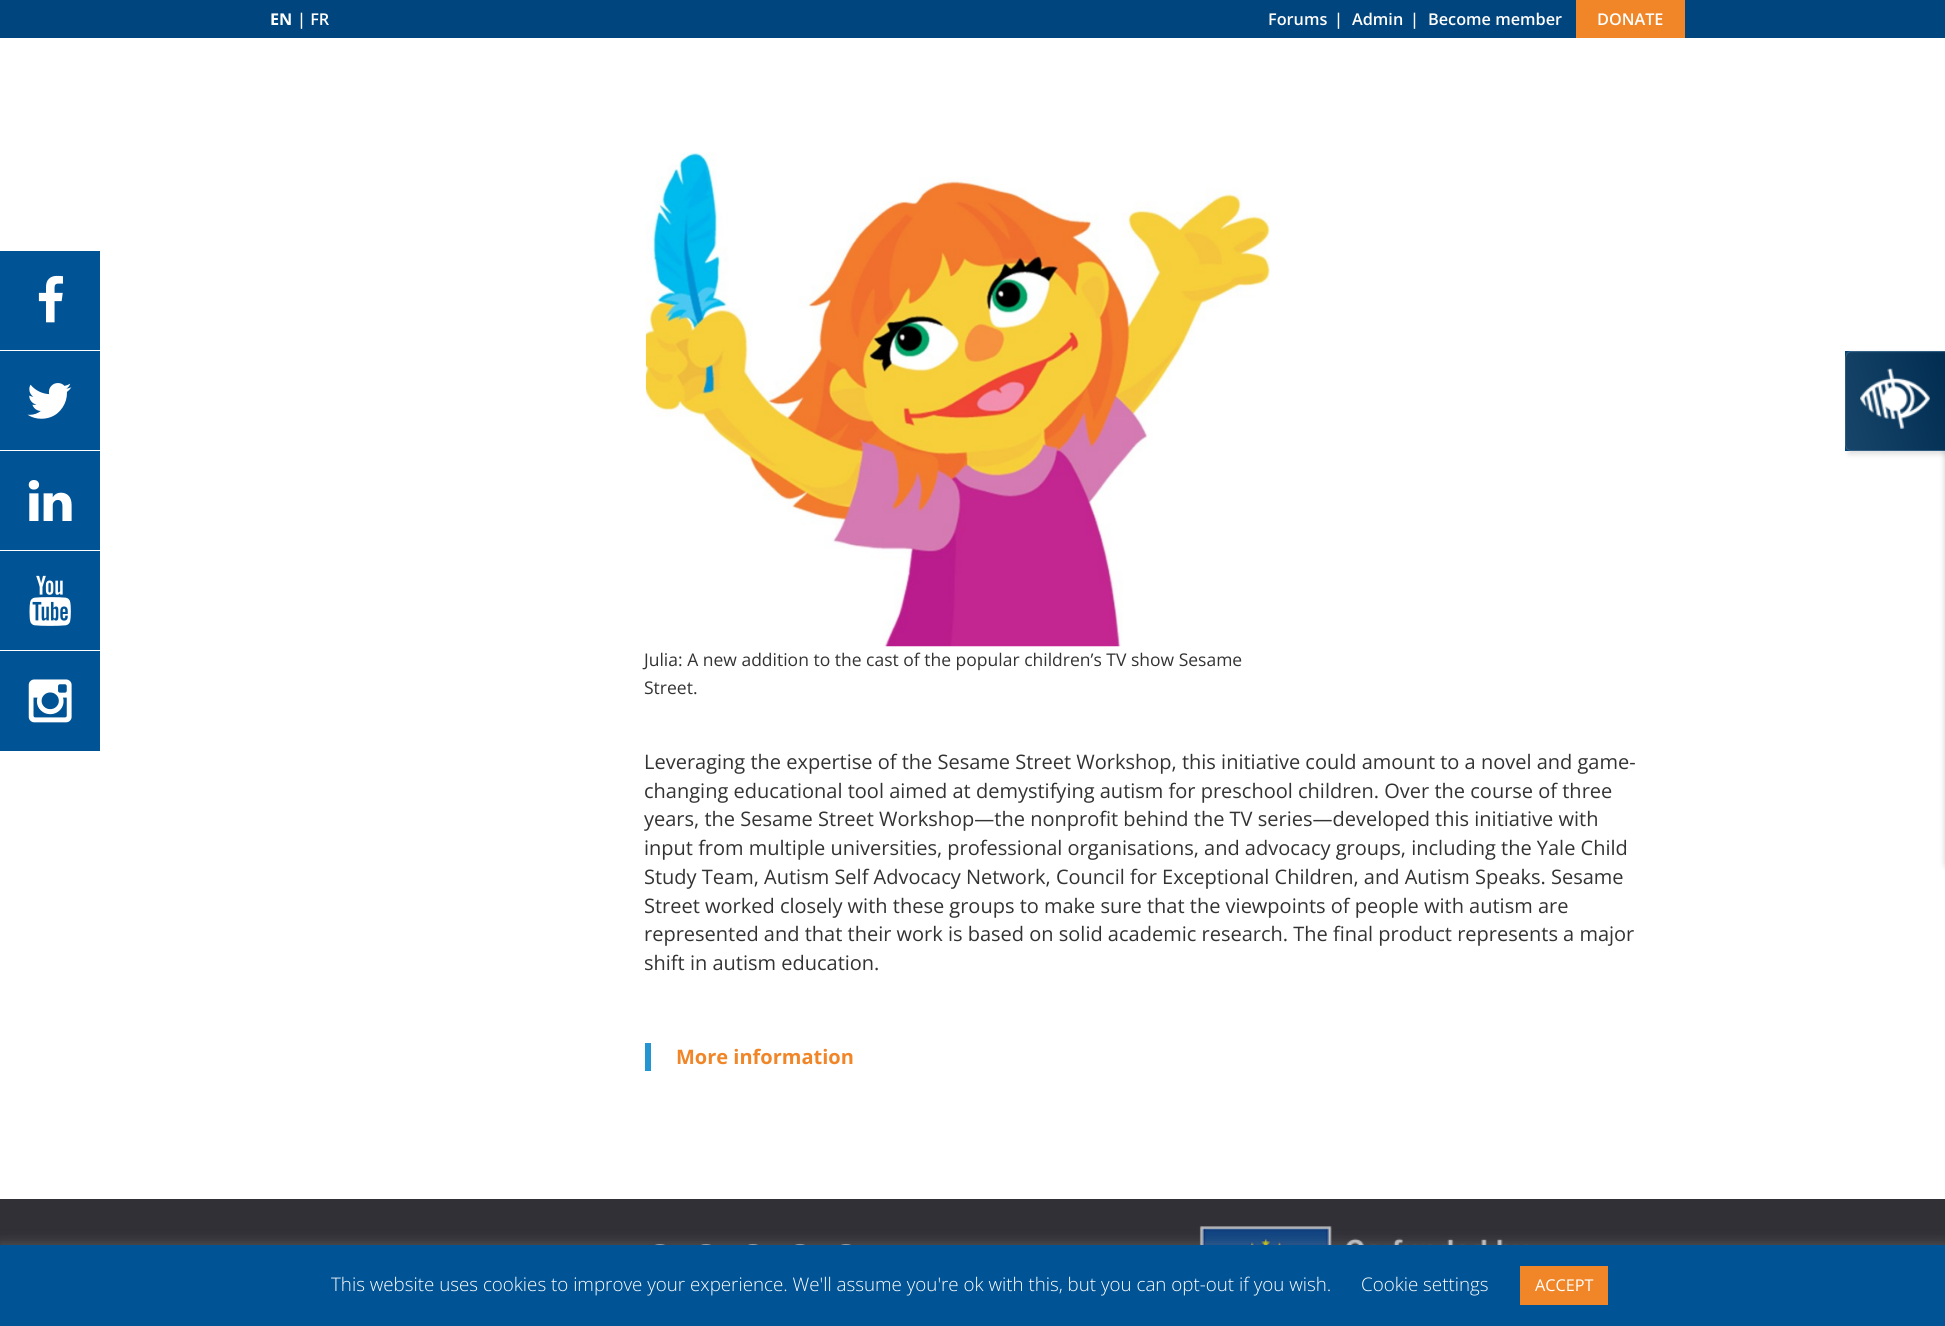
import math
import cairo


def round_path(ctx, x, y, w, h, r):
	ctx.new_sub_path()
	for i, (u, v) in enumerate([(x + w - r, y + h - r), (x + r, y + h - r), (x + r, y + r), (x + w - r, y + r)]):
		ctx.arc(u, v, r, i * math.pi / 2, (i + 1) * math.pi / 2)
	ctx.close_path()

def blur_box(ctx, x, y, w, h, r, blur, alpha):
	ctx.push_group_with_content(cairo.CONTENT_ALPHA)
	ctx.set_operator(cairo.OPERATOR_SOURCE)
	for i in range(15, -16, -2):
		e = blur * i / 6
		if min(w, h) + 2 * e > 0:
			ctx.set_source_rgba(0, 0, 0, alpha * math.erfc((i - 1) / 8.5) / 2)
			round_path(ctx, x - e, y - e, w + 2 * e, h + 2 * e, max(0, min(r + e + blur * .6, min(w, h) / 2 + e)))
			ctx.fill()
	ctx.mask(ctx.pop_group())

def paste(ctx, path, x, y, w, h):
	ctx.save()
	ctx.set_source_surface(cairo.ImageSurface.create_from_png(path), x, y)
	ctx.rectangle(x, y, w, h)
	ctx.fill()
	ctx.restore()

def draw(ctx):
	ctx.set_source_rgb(1, 1, 1)
	ctx.paint()
	ctx.set_source_rgb(0, 0.271, 0.49)
	ctx.rectangle(0, 0, 1945, 38)
	ctx.fill()
	ctx.select_font_face('Open Sans', cairo.FONT_SLANT_NORMAL, cairo.FONT_WEIGHT_BOLD)
	ctx.set_font_size(16.25)
	ctx.set_source_rgb(1, 1, 1)
	ctx.move_to(270, 25)
	ctx.show_text('EN')
	ctx.select_font_face('Open Sans SemiBold')
	for x, y, s in [
		(297, 25, '| FR'),
		(1268, 25, 'Forums'),
		(1334, 25, '|'),
		(1352, 25, 'Admin'),
		(1410, 25, '|'),
		(1428, 25, 'Become member'),
	]:
		ctx.move_to(x, y)
		ctx.show_text(s)
	ctx.set_source_rgb(0.941, 0.525, 0.157)
	ctx.rectangle(1576, 0, 109, 38)
	ctx.fill()
	ctx.set_source_rgb(1, 1, 1)
	ctx.move_to(1597, 25)
	ctx.show_text('DONATE')
	ctx.set_source_rgb(0, 0.325, 0.584)
	ctx.rectangle(0, 251, 100, 99)
	ctx.fill()
	paste(ctx, 'media/1.png', 38, 275, 25, 48)
	ctx.rectangle(0, 351, 100, 99)
	ctx.fill()
	paste(ctx, 'media/2.png', 27, 383, 45, 36)
	ctx.rectangle(0, 451, 100, 99)
	ctx.fill()
	paste(ctx, 'media/3.png', 28, 480, 44, 41)
	ctx.rectangle(0, 551, 100, 99)
	ctx.fill()
	paste(ctx, 'media/4.png', 29, 575, 42, 51)
	ctx.rectangle(0, 651, 100, 100)
	ctx.fill()
	paste(ctx, 'media/5.png', 28, 679, 44, 44)
	paste(ctx, 'media/6.png', 645, 152, 625, 495)
	ctx.select_font_face('Open Sans')
	ctx.set_font_size(17.5)
	ctx.set_source_rgb(0.2, 0.2, 0.2)
	ctx.move_to(644, 666)
	ctx.show_text('Julia: A new addition to the cast of the popular children’s TV show Sesame')
	ctx.move_to(644, 694)
	ctx.show_text('Street.')
	ctx.set_font_size(20)
	for x, y, s in [
		(644, 769, 'Leveraging the expertise of the Sesame Street Workshop, this initiative could amount to a novel and game-'),
		(644, 798, 'changing educational tool aimed at demystifying autism for preschool children. Over the course of three'),
		(644, 826, 'years, the Sesame Street Workshop—the nonprofit behind the TV series—developed this initiative with'),
		(644, 855, 'input from multiple universities, professional organisations, and advocacy groups, including the Yale Child'),
		(644, 884, 'Study Team, Autism Self Advocacy Network, Council for Exceptional Children, and Autism Speaks. Sesame'),
		(644, 913, 'Street worked closely with these groups to make sure that the viewpoints of people with autism are'),
		(644, 941, 'represented and that their work is based on solid academic research. The final product represents a major'),
		(644, 970, 'shift in autism education.'),
	]:
		ctx.move_to(x, y)
		ctx.show_text(s)
	ctx.set_source_rgb(0.145, 0.584, 0.824)
	ctx.rectangle(645, 1043, 6, 28)
	ctx.fill()
	ctx.select_font_face('Open Sans', cairo.FONT_SLANT_NORMAL, cairo.FONT_WEIGHT_BOLD)
	ctx.set_source_rgb(0.941, 0.525, 0.157)
	ctx.move_to(676, 1064)
	ctx.show_text('More information')
	ctx.set_source_rgb(0, 0, 0)
	blur_box(ctx, 1849, 354, 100, 100, 0, 3, 0.14)
	ctx.set_source_rgb(0, 0.271, 0.49)
	ctx.rectangle(1845, 351, 6, 100)
	ctx.fill()
	ctx.set_source_rgb(0, 0.004, 0.004)
	blur_box(ctx, 1945, 358, 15, 511, 6, 3, 0.2)
	ctx.save()
	ctx.new_path()
	ctx.move_to(1851, 351)
	ctx.line_to(1945, 351)
	ctx.line_to(1945, 451)
	ctx.line_to(1851, 451)
	ctx.curve_to(1847.5, 451, 1845, 448.5, 1845, 445)
	ctx.line_to(1845, 357)
	ctx.curve_to(1845, 353.5, 1847.5, 351, 1851, 351)
	ctx.close_path()
	ctx.clip()
	gradient = cairo.LinearGradient(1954, 288, 1837, 319)
	gradient.add_color_stop_rgba(0.01, 0, 0.176, 0.318, 1)
	gradient.add_color_stop_rgba(0.98, 0.09, 0.267, 0.412, 1)
	ctx.set_source(gradient)
	ctx.rectangle(1846, 351, 99, 2)
	ctx.fill()
	gradient = cairo.LinearGradient(1855, 386, 1739, 417)
	gradient.add_color_stop_rgba(0.01, 0, 0.176, 0.318, 1)
	gradient.add_color_stop_rgba(0.98, 0.09, 0.267, 0.412, 1)
	ctx.set_source(gradient)
	ctx.rectangle(1845, 353, 1, 97)
	ctx.fill()
	gradient = cairo.LinearGradient(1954, 386, 1837, 417)
	gradient.add_color_stop_rgba(0.01, 0, 0.176, 0.318, 1)
	gradient.add_color_stop_rgba(0.98, 0.09, 0.267, 0.412, 1)
	ctx.set_source(gradient)
	ctx.rectangle(1846, 353, 99, 97)
	ctx.fill()
	gradient = cairo.LinearGradient(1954, 483, 1837, 514)
	gradient.add_color_stop_rgba(0.01, 0, 0.176, 0.318, 1)
	gradient.add_color_stop_rgba(0.98, 0.09, 0.267, 0.412, 1)
	ctx.set_source(gradient)
	ctx.rectangle(1846, 450, 99, 1)
	ctx.fill()
	ctx.restore()
	ctx.set_source_rgba(0.349, 0.525, 0.671, 0.5)
	ctx.set_fill_rule(cairo.FILL_RULE_EVEN_ODD)
	ctx.new_path()
	ctx.move_to(1851, 351)
	ctx.line_to(1945, 351)
	ctx.line_to(1945, 451)
	ctx.line_to(1851, 451)
	ctx.curve_to(1848, 451, 1845, 448, 1845, 445)
	ctx.line_to(1845, 358)
	ctx.curve_to(1845, 354, 1848, 351, 1851, 351)
	ctx.close_path()
	ctx.move_to(1851, 352)
	ctx.line_to(1945, 352)
	ctx.line_to(1945, 450)
	ctx.line_to(1851, 450)
	ctx.curve_to(1848, 450, 1846, 448, 1846, 445)
	ctx.line_to(1846, 358)
	ctx.curve_to(1846, 355, 1848, 352, 1851, 352)
	ctx.close_path()
	ctx.fill()
	paste(ctx, 'media/7.png', 1860, 368, 70, 61)
	ctx.set_source_rgb(0.188, 0.188, 0.212)
	ctx.rectangle(0, 1199, 1945, 46)
	ctx.fill()
	paste(ctx, 'media/8.png', 1199, 1226, 329, 19)
	ctx.arc(660, 1259, 13.5, 0, 2 * math.pi)
	ctx.set_source_rgb(0.612, 0.612, 0.612)
	ctx.set_line_width(3)
	ctx.stroke()
	ctx.arc(706, 1259, 13.5, 0, 2 * math.pi)
	ctx.stroke()
	ctx.arc(753, 1259, 13.5, 0, 2 * math.pi)
	ctx.stroke()
	ctx.arc(800, 1259, 13.5, 0, 2 * math.pi)
	ctx.stroke()
	ctx.arc(846, 1259, 13.5, 0, 2 * math.pi)
	ctx.stroke()
	ctx.set_source_rgb(0.675, 0.671, 0.671)
	blur_box(ctx, 0, 1244, 1945, 81, 0, 6, 0.3)
	ctx.set_source_rgb(0, 0.325, 0.584)
	ctx.rectangle(0, 1245, 1945, 81)
	ctx.fill()
	ctx.select_font_face('Open Sans Light')
	ctx.set_font_size(18.75)
	ctx.set_source_rgb(1, 1, 1)
	ctx.move_to(331, 1291)
	ctx.show_text('This website uses cookies to improve your experience. We\'ll assume you\'re ok with this, but you can opt-out if you wish.')
	ctx.move_to(1361, 1291)
	ctx.show_text('Cookie settings')
	ctx.set_source_rgb(0.941, 0.525, 0.157)
	ctx.rectangle(1520, 1266, 88, 39)
	ctx.fill()
	ctx.select_font_face('Open Sans')
	ctx.set_font_size(16.25)
	ctx.set_source_rgb(1, 1, 1)
	ctx.move_to(1535, 1291)
	ctx.show_text('ACCEPT')


surface = cairo.ImageSurface(cairo.FORMAT_RGB24, 1945, 1326)
ctx = cairo.Context(surface)
options = cairo.FontOptions()
options.set_hint_metrics(cairo.HINT_METRICS_OFF)
options.set_hint_style(cairo.HINT_STYLE_NONE)
ctx.set_font_options(options)
ctx.set_miter_limit(4)
draw(ctx)
surface.write_to_png('image.png')
